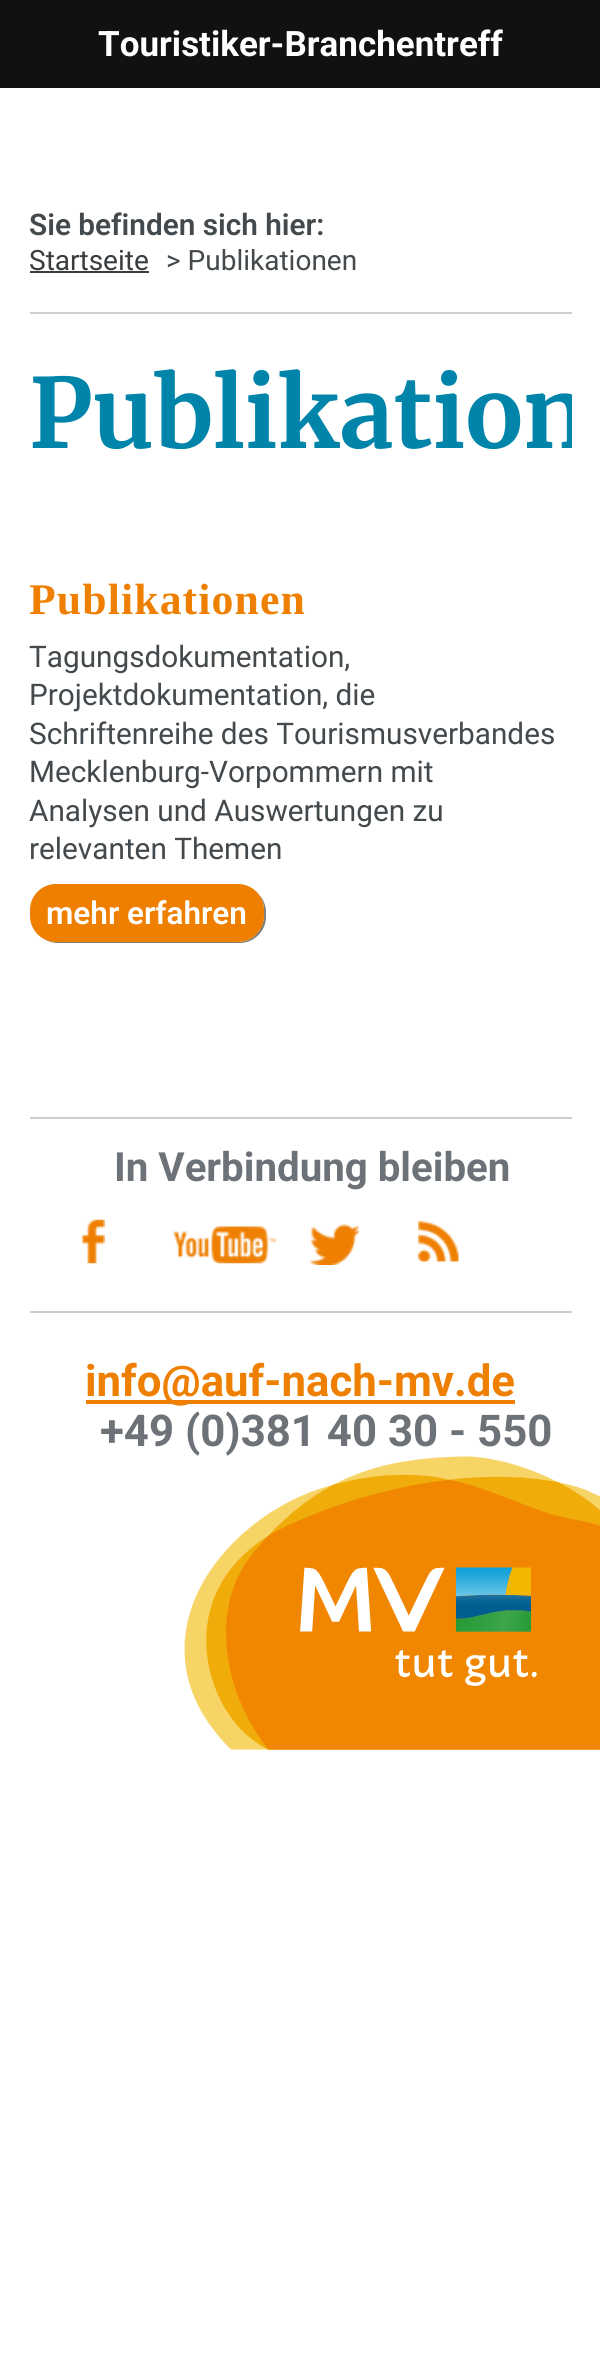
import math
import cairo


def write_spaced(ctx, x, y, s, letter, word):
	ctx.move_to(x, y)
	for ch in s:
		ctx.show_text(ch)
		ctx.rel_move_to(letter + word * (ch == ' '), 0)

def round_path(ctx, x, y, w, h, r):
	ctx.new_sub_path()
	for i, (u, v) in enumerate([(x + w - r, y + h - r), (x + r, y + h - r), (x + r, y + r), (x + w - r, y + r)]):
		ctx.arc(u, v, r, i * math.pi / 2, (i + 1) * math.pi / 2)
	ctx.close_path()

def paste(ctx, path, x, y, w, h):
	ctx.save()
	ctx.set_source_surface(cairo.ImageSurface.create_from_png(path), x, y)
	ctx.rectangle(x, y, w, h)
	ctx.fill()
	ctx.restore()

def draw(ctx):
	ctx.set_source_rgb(1, 1, 1)
	ctx.paint()
	ctx.set_source_rgb(0.067, 0.067, 0.067)
	ctx.rectangle(0, 0, 600, 88)
	ctx.fill()
	ctx.select_font_face('Roboto', cairo.FONT_SLANT_NORMAL, cairo.FONT_WEIGHT_BOLD)
	ctx.set_font_size(35)
	ctx.set_source_rgb(1, 1, 1)
	ctx.move_to(98, 56)
	ctx.show_text('Touristiker-Branchentreff')
	ctx.set_source_rgb(0.808, 0.808, 0.812)
	ctx.rectangle(30, 312, 542, 2)
	ctx.fill()
	ctx.select_font_face('Roboto SemiBold')
	ctx.set_font_size(29.75)
	ctx.set_source_rgb(0.263, 0.286, 0.298)
	ctx.move_to(29, 235)
	ctx.show_text('Sie befinden sich hier:')
	ctx.select_font_face('Roboto')
	ctx.set_font_size(28)
	ctx.set_source_rgb(0.227, 0.239, 0.251)
	ctx.move_to(29, 270)
	ctx.show_text('Startseite')
	ctx.rectangle(30, 271, 119, 2)
	ctx.fill()
	ctx.set_source_rgb(0.263, 0.286, 0.298)
	ctx.move_to(166, 270)
	ctx.show_text('> Publikationen')
	ctx.save()
	ctx.rectangle(30, 357, 542, 726)
	ctx.clip()
	ctx.select_font_face('Merriweather', cairo.FONT_SLANT_NORMAL, cairo.FONT_WEIGHT_BOLD)
	ctx.set_font_size(96.25)
	ctx.set_source_rgb(0, 0.518, 0.663)
	ctx.move_to(29, 448)
	ctx.show_text('Publikation')
	ctx.restore()
	ctx.save()
	ctx.rectangle(30, 541, 542, 499)
	ctx.clip()
	ctx.select_font_face('Liberation Serif', cairo.FONT_SLANT_NORMAL, cairo.FONT_WEIGHT_BOLD)
	ctx.set_font_size(43.75)
	ctx.set_source_rgb(0.933, 0.498, 0)
	write_spaced(ctx, 29, 614, 'Publikationen', 1.1, 0)
	ctx.restore()
	ctx.set_font_size(29.75)
	for x, y, s in [
		(29, 667, 'Tagungsdokumentation,'),
		(29, 705, 'Projektdokumentation, die'),
		(29, 744, 'Schriftenreihe des Tourismusverbandes'),
		(29, 782, 'Mecklenburg-Vorpommern mit'),
		(29, 821, 'Analysen und Auswertungen zu'),
		(29, 859, 'relevanten Themen'),
	]:
		ctx.move_to(x, y)
		ctx.show_text(s)
	ctx.set_source_rgb(0.502, 0.502, 0.502)
	ctx.new_path()
	ctx.move_to(42, 937)
	ctx.curve_to(46, 941, 52, 943, 58, 943)
	ctx.line_to(240, 943)
	ctx.curve_to(254, 943, 266, 931, 266, 917)
	ctx.line_to(266, 912)
	ctx.curve_to(266, 905, 263, 899, 259, 894)
	ctx.curve_to(262, 899, 264, 904, 264, 910)
	ctx.line_to(264, 915)
	ctx.curve_to(264, 930, 252, 942, 238, 942)
	ctx.line_to(56, 942)
	ctx.curve_to(51, 942, 46, 940, 42, 937)
	ctx.close_path()
	ctx.fill()
	ctx.set_source_rgb(0.933, 0.498, 0)
	round_path(ctx, 30, 884, 234, 58, 26)
	ctx.fill()
	ctx.select_font_face('Roboto SemiBold')
	ctx.set_font_size(31.5)
	ctx.set_source_rgb(1, 1, 1)
	ctx.move_to(46, 924)
	ctx.show_text('mehr erfahren')
	ctx.set_source_rgb(0.808, 0.808, 0.812)
	ctx.rectangle(30, 1117, 542, 2)
	ctx.fill()
	ctx.rectangle(30, 1311, 542, 2)
	ctx.fill()
	ctx.select_font_face('Roboto', cairo.FONT_SLANT_NORMAL, cairo.FONT_WEIGHT_BOLD)
	ctx.set_font_size(40.25)
	ctx.set_source_rgb(0.427, 0.447, 0.471)
	ctx.move_to(114, 1181)
	ctx.show_text('In Verbindung bleiben')
	paste(ctx, 'media/1.png', 82, 1219, 23, 45)
	paste(ctx, 'media/2.png', 173, 1226, 104, 38)
	paste(ctx, 'media/3.png', 309, 1224, 50, 41)
	paste(ctx, 'media/4.png', 418, 1220, 41, 42)
	ctx.set_source_rgb(0.933, 0.498, 0)
	ctx.rectangle(86, 1400, 429, 4)
	ctx.fill()
	ctx.set_font_size(43.75)
	ctx.move_to(85, 1396)
	ctx.show_text('info@auf-nach-mv.de')
	ctx.set_source_rgb(0.427, 0.447, 0.471)
	ctx.move_to(100, 1446)
	ctx.show_text('+49 (0)381 40 30 - 550')
	paste(ctx, 'media/5.png', 184, 1456, 416, 294)


surface = cairo.ImageSurface(cairo.FORMAT_RGB24, 600, 2364)
ctx = cairo.Context(surface)
options = cairo.FontOptions()
options.set_hint_metrics(cairo.HINT_METRICS_OFF)
options.set_hint_style(cairo.HINT_STYLE_NONE)
ctx.set_font_options(options)
ctx.set_miter_limit(4)
draw(ctx)
surface.write_to_png('image.png')
